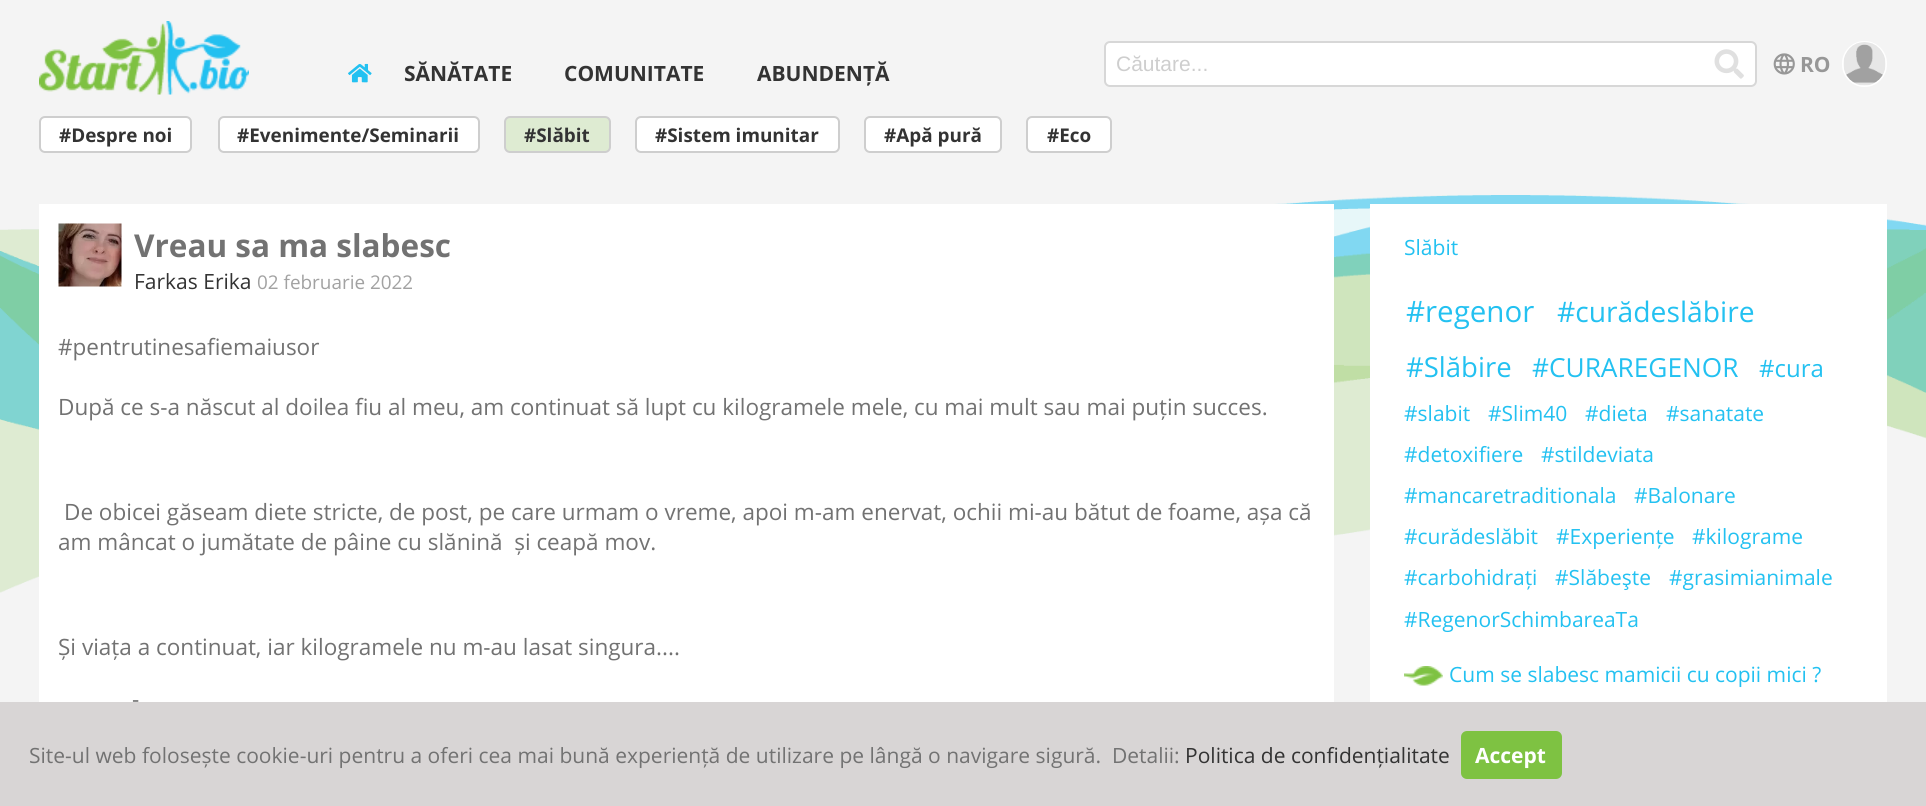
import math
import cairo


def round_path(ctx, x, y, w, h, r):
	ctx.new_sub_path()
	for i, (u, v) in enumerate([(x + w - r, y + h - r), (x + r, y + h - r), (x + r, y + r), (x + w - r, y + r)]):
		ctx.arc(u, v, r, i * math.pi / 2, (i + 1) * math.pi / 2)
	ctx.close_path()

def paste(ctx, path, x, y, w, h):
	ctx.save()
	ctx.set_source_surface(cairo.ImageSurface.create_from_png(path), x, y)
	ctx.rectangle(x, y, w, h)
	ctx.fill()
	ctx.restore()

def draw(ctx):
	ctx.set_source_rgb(0.957, 0.957, 0.957)
	ctx.paint()
	paste(ctx, 'media/1.png', 0, 195, 1926, 398)
	paste(ctx, 'media/2.png', 39, 21, 210, 74)
	paste(ctx, 'media/3.png', 348, 63, 24, 20)
	ctx.select_font_face('Open Sans', cairo.FONT_SLANT_NORMAL, cairo.FONT_WEIGHT_BOLD)
	ctx.set_font_size(21)
	ctx.set_source_rgb(0.2, 0.2, 0.2)
	for x, y, s in [
		(404, 81, 'SĂNĂTATE'),
		(564, 81, 'COMUNITATE'),
		(757, 81, 'ABUNDENȚĂ'),
	]:
		ctx.move_to(x, y)
		ctx.show_text(s)
	ctx.set_source_rgb(1, 1, 1)
	round_path(ctx, 1105, 42, 651, 44, 5)
	ctx.fill_preserve()
	ctx.set_source_rgb(0.843, 0.843, 0.843)
	ctx.stroke()
	ctx.select_font_face('Liberation Sans')
	ctx.set_source_rgb(0.808, 0.808, 0.808)
	ctx.move_to(1116, 71)
	ctx.show_text('Căutare...')
	paste(ctx, 'media/4.png', 1714, 49, 30, 30)
	paste(ctx, 'media/5.png', 1773, 53, 22, 22)
	ctx.select_font_face('Open Sans', cairo.FONT_SLANT_NORMAL, cairo.FONT_WEIGHT_BOLD)
	ctx.set_source_rgb(0.592, 0.592, 0.592)
	ctx.move_to(1800, 72)
	ctx.show_text('RO')
	round_path(ctx, 1843, 42, 43, 44, 21.5)
	ctx.set_source_rgb(1, 1, 1)
	ctx.stroke()
	paste(ctx, 'media/6.png', 1843, 42, 43, 44)
	round_path(ctx, 40, 117, 151, 35, 5)
	ctx.fill_preserve()
	ctx.set_source_rgb(0.808, 0.808, 0.808)
	ctx.stroke()
	ctx.set_font_size(18.9)
	ctx.set_source_rgb(0.2, 0.2, 0.2)
	ctx.move_to(59, 142)
	ctx.show_text('#Despre noi')
	ctx.set_source_rgb(1, 1, 1)
	round_path(ctx, 219, 117, 260, 35, 5)
	ctx.fill_preserve()
	ctx.set_source_rgb(0.808, 0.808, 0.808)
	ctx.stroke()
	ctx.set_source_rgb(0.2, 0.2, 0.2)
	ctx.move_to(237, 142)
	ctx.show_text('#Evenimente/Seminarii')
	ctx.set_source_rgb(0.871, 0.918, 0.824)
	round_path(ctx, 505, 117, 105, 35, 5)
	ctx.fill_preserve()
	ctx.set_source_rgb(0.808, 0.808, 0.808)
	ctx.stroke()
	ctx.set_source_rgb(0.2, 0.2, 0.2)
	ctx.move_to(524, 142)
	ctx.show_text('#Slăbit')
	ctx.set_source_rgb(1, 1, 1)
	round_path(ctx, 636, 117, 203, 35, 5)
	ctx.fill_preserve()
	ctx.set_source_rgb(0.808, 0.808, 0.808)
	ctx.stroke()
	ctx.set_source_rgb(0.2, 0.2, 0.2)
	ctx.move_to(655, 142)
	ctx.show_text('#Sistem imunitar')
	ctx.set_source_rgb(1, 1, 1)
	round_path(ctx, 865, 117, 136, 35, 5)
	ctx.fill_preserve()
	ctx.set_source_rgb(0.808, 0.808, 0.808)
	ctx.stroke()
	ctx.set_source_rgb(0.2, 0.2, 0.2)
	ctx.move_to(884, 142)
	ctx.show_text('#Apă pură')
	ctx.set_source_rgb(1, 1, 1)
	round_path(ctx, 1027, 117, 84, 35, 5)
	ctx.fill_preserve()
	ctx.set_source_rgb(0.808, 0.808, 0.808)
	ctx.stroke()
	ctx.set_source_rgb(0.2, 0.2, 0.2)
	ctx.move_to(1047, 142)
	ctx.show_text('#Eco')
	ctx.set_source_rgb(1, 1, 1)
	ctx.rectangle(39, 204, 1295, 498)
	ctx.fill()
	paste(ctx, 'media/7.png', 58, 223, 64, 64)
	ctx.set_font_size(31.5)
	ctx.set_source_rgb(0.447, 0.447, 0.447)
	ctx.move_to(134, 257)
	ctx.show_text('Vreau sa ma slabesc')
	ctx.select_font_face('Open Sans')
	ctx.set_font_size(21)
	ctx.set_source_rgb(0.2, 0.2, 0.2)
	ctx.move_to(134, 289)
	ctx.show_text('Farkas Erika')
	ctx.set_font_size(18.9)
	ctx.set_source_rgb(0.635, 0.635, 0.635)
	ctx.move_to(257, 289)
	ctx.show_text('02 februarie 2022')
	ctx.set_font_size(22.5)
	ctx.set_source_rgb(0.447, 0.447, 0.447)
	for x, y, s in [
		(58, 355, '#pentrutinesafiemaiusor'),
		(58, 415, 'După ce s-a născut al doilea fiu al meu, am continuat să lupt cu kilogramele mele, cu mai mult sau mai puțin succes.'),
		(64, 520, 'De obicei găseam diete stricte, de post, pe care urmam o vreme, apoi m-am enervat, ochii mi-au bătut de foame, așa că'),
		(58, 550, 'am mâncat o jumătate de pâine cu slănină  și ceapă mov.'),
		(58, 655, 'Și viața a continuat, iar kilogramele nu m-au lasat singura....'),
		(132, 707, '-'),
	]:
		ctx.move_to(x, y)
		ctx.show_text(s)
	ctx.set_source_rgb(1, 1, 1)
	ctx.rectangle(1370, 204, 517, 498)
	ctx.fill()
	ctx.set_font_size(21)
	ctx.set_source_rgb(0.137, 0.757, 0.945)
	ctx.move_to(1404, 255)
	ctx.show_text('Slăbit')
	ctx.set_font_size(29.5)
	ctx.move_to(1406, 322)
	ctx.show_text('#regenor')
	ctx.set_font_size(28.25)
	ctx.move_to(1557, 322)
	ctx.show_text('#curădeslăbire')
	ctx.set_font_size(27.5)
	ctx.move_to(1406, 377)
	ctx.show_text('#Slăbire')
	ctx.set_font_size(26.25)
	ctx.move_to(1532, 377)
	ctx.show_text('#CURAREGENOR')
	ctx.set_font_size(24)
	ctx.move_to(1759, 377)
	ctx.show_text('#cura')
	ctx.set_font_size(21)
	for x, y, s in [
		(1404, 421, '#slabit'),
		(1488, 421, '#Slim40'),
		(1585, 421, '#dieta'),
		(1666, 421, '#sanatate'),
		(1404, 462, '#detoxifiere'),
		(1541, 462, '#stildeviata'),
		(1404, 503, '#mancaretraditionala'),
		(1634, 503, '#Balonare'),
		(1404, 544, '#curădeslăbit'),
		(1556, 544, '#Experiențe'),
		(1692, 544, '#kilograme'),
		(1404, 585, '#carbohidrați'),
		(1555, 585, '#Slăbeşte'),
		(1669, 585, '#grasimianimale'),
		(1404, 627, '#RegenorSchimbareaTa'),
	]:
		ctx.move_to(x, y)
		ctx.show_text(s)
	paste(ctx, 'media/8.png', 1404, 666, 39, 20)
	ctx.move_to(1449, 682)
	ctx.show_text('Cum se slabesc mamicii cu copii mici ?')
	ctx.set_source_rgb(0.847, 0.835, 0.835)
	ctx.rectangle(0, 702, 1926, 104)
	ctx.fill()
	ctx.set_source_rgb(0.447, 0.447, 0.447)
	ctx.move_to(29, 763)
	ctx.show_text('Site-ul web folosește cookie-uri pentru a oferi cea mai bună experiență de utilizare pe lângă o navigare sigură.')
	ctx.move_to(1112, 763)
	ctx.show_text('Detalii:')
	ctx.set_source_rgb(0.2, 0.2, 0.2)
	ctx.move_to(1185, 763)
	ctx.show_text('Politica de confidențialitate')
	ctx.set_source_rgb(0.494, 0.761, 0.259)
	round_path(ctx, 1461, 731, 101, 48, 6)
	ctx.fill()
	ctx.select_font_face('Open Sans', cairo.FONT_SLANT_NORMAL, cairo.FONT_WEIGHT_BOLD)
	ctx.set_source_rgb(1, 1, 1)
	ctx.move_to(1475, 763)
	ctx.show_text('Accept')


surface = cairo.ImageSurface(cairo.FORMAT_RGB24, 1926, 806)
ctx = cairo.Context(surface)
options = cairo.FontOptions()
options.set_hint_metrics(cairo.HINT_METRICS_OFF)
options.set_hint_style(cairo.HINT_STYLE_NONE)
ctx.set_font_options(options)
ctx.set_miter_limit(4)
draw(ctx)
surface.write_to_png('image.png')
